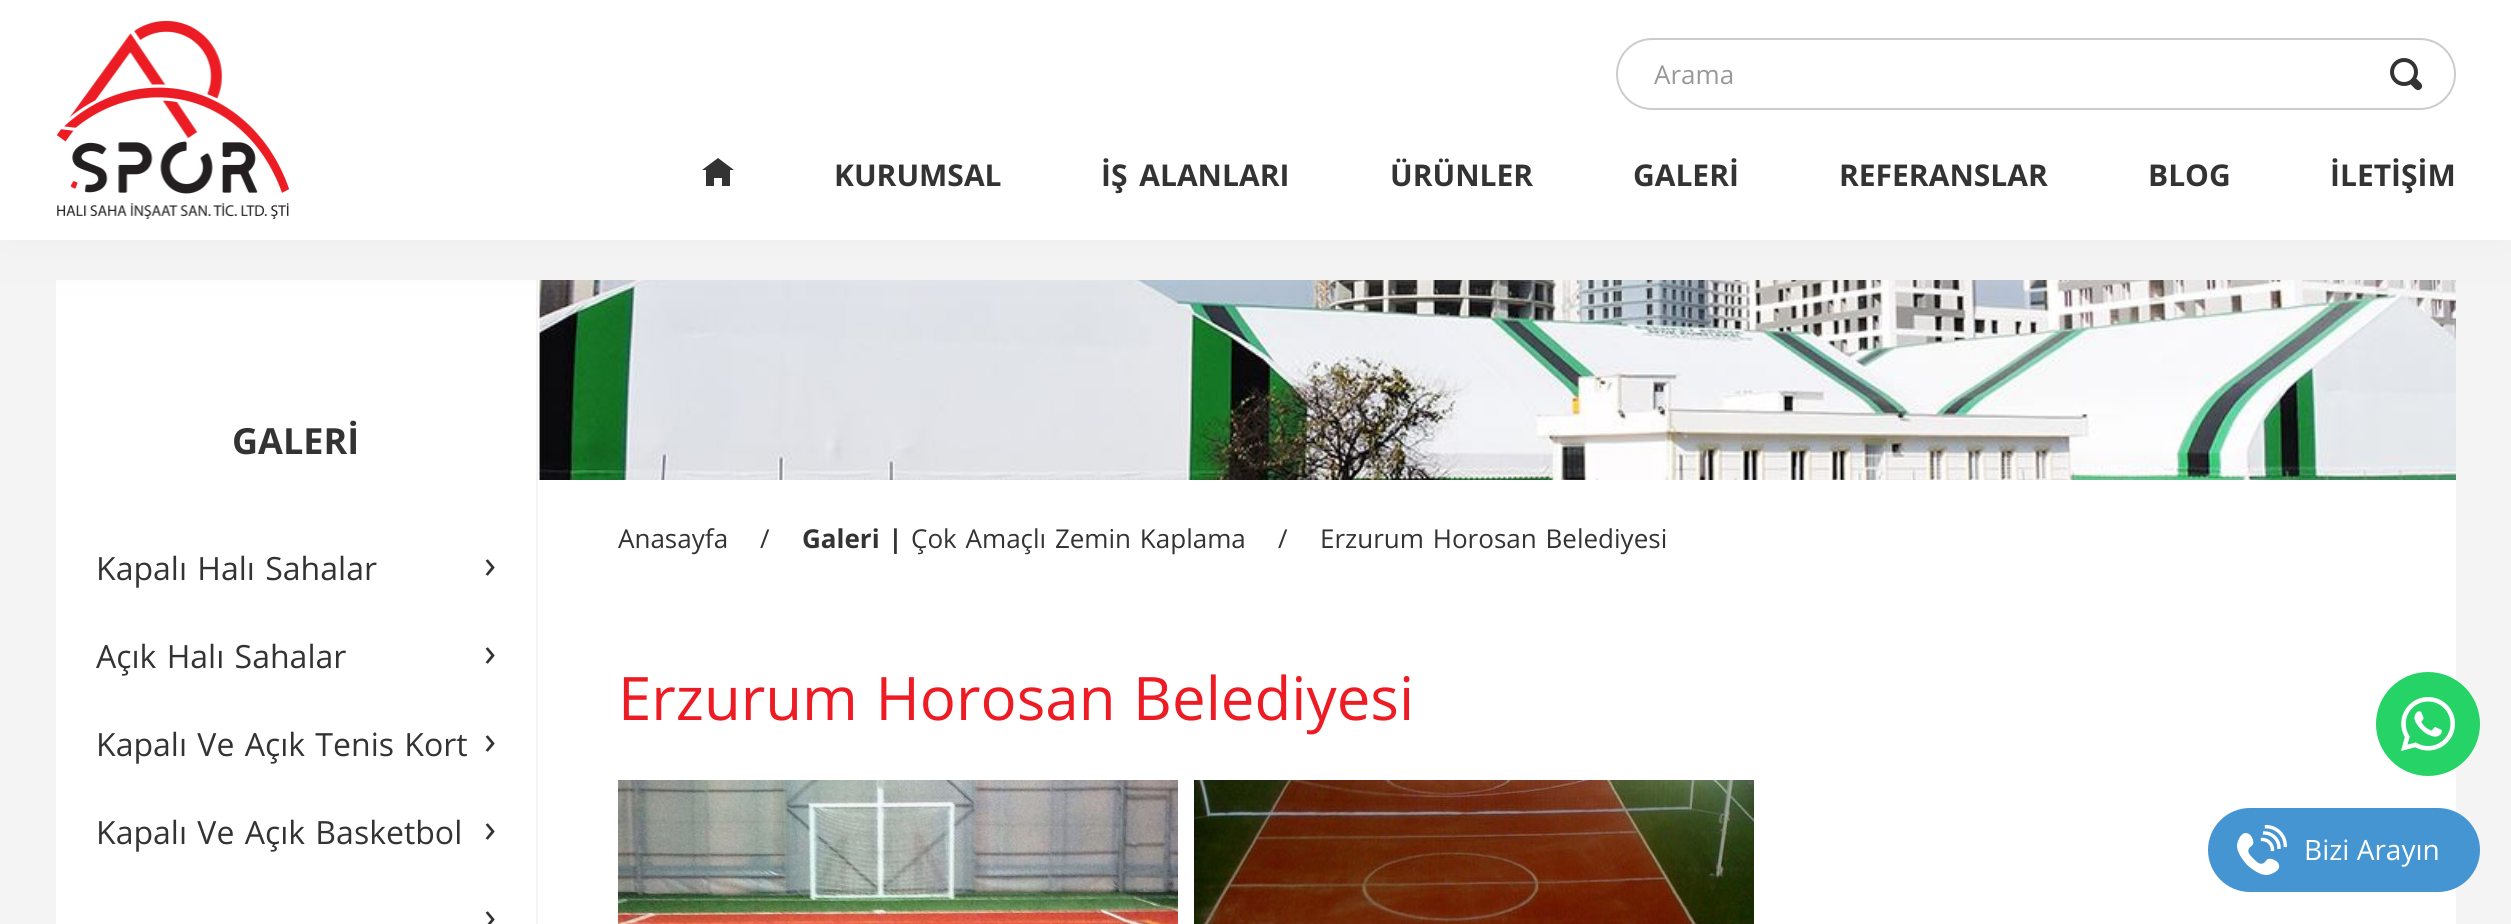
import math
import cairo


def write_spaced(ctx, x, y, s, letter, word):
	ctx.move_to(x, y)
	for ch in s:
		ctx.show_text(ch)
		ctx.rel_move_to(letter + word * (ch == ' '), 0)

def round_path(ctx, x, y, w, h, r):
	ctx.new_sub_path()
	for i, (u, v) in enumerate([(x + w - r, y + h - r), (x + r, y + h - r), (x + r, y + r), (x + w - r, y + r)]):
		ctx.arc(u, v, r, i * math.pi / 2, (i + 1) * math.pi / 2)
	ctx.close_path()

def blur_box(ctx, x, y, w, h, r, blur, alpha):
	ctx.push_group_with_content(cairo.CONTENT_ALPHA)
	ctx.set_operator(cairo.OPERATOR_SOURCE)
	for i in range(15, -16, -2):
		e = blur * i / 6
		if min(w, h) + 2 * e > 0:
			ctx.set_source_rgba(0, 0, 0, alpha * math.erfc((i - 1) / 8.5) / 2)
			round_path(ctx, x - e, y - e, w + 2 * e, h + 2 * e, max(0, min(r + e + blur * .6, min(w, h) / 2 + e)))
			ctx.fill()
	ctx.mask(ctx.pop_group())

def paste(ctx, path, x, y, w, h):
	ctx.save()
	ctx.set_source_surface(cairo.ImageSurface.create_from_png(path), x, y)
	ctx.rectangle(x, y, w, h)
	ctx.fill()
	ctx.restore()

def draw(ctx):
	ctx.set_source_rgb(0.957, 0.957, 0.957)
	ctx.paint()
	ctx.set_source_rgb(1, 1, 1)
	ctx.rectangle(56, 280, 480, 644)
	ctx.fill()
	paste(ctx, 'media/3.png', 538, 280, 1918, 200)
	ctx.set_source_rgb(0.933, 0.933, 0.933)
	blur_box(ctx, 0, 0, 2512, 240, 0, 30, 1)
	ctx.set_source_rgb(1, 1, 1)
	ctx.rectangle(0, 0, 2511, 240)
	ctx.fill()
	paste(ctx, 'media/1.png', 56, 20, 234, 200)
	round_path(ctx, 1617, 39, 838, 70, 35)
	ctx.set_source_rgb(0.8, 0.8, 0.8)
	ctx.stroke()
	ctx.select_font_face('Open Sans')
	ctx.set_font_size(26)
	ctx.set_source_rgb(0.6, 0.6, 0.6)
	ctx.move_to(1654, 84)
	ctx.show_text('Arama')
	paste(ctx, 'media/2.png', 2390, 58, 33, 33)
	ctx.set_source_rgb(0.2, 0.2, 0.2)
	ctx.new_path()
	ctx.move_to(718, 158)
	ctx.line_to(702, 170)
	ctx.line_to(706, 170)
	ctx.line_to(706, 186)
	ctx.line_to(714, 186)
	ctx.line_to(714, 178)
	ctx.line_to(722, 178)
	ctx.line_to(722, 186)
	ctx.line_to(730, 186)
	ctx.line_to(730, 170)
	ctx.line_to(734, 170)
	ctx.close_path()
	ctx.fill()
	ctx.select_font_face('Open Sans', cairo.FONT_SLANT_NORMAL, cairo.FONT_WEIGHT_BOLD)
	ctx.set_font_size(30)
	ctx.move_to(834, 186)
	ctx.show_text('KURUMSAL')
	write_spaced(ctx, 1101, 186, 'İŞ ALANLARI', 0, 4)
	for x, y, s in [
		(1390, 186, 'ÜRÜNLER'),
		(1633, 186, 'GALERİ'),
		(1839, 186, 'REFERANSLAR'),
		(2148, 186, 'BLOG'),
		(2330, 186, 'İLETİŞİM'),
	]:
		ctx.move_to(x, y)
		ctx.show_text(s)
	ctx.set_font_size(36)
	ctx.move_to(232, 454)
	ctx.show_text('GALERİ')
	ctx.select_font_face('Open Sans')
	ctx.set_font_size(32)
	write_spaced(ctx, 96, 580, 'Kapalı Halı Sahalar', 0, 2)
	ctx.set_font_size(40)
	ctx.move_to(484, 578)
	ctx.show_text('›')
	ctx.set_font_size(32)
	write_spaced(ctx, 96, 668, 'Açık Halı Sahalar', 0, 2)
	ctx.set_font_size(40)
	ctx.move_to(484, 666)
	ctx.show_text('›')
	ctx.set_font_size(32)
	write_spaced(ctx, 96, 756, 'Kapalı Ve Açık Tenis Kort', 0, 2)
	ctx.set_font_size(40)
	ctx.move_to(484, 754)
	ctx.show_text('›')
	ctx.set_font_size(32)
	write_spaced(ctx, 96, 844, 'Kapalı Ve Açık Basketbol', 0, 2)
	ctx.set_font_size(40)
	ctx.move_to(484, 842)
	ctx.show_text('›')
	ctx.move_to(484, 930)
	ctx.show_text('›')
	ctx.set_source_rgb(1, 1, 1)
	ctx.rectangle(538, 480, 1918, 444)
	ctx.fill()
	ctx.set_font_size(26)
	ctx.set_source_rgb(0.2, 0.2, 0.2)
	ctx.move_to(618, 548)
	ctx.show_text('Anasayfa')
	ctx.move_to(760, 548)
	ctx.show_text('/')
	ctx.select_font_face('Open Sans', cairo.FONT_SLANT_NORMAL, cairo.FONT_WEIGHT_BOLD)
	write_spaced(ctx, 802, 548, 'Galeri |', 0, 2)
	ctx.select_font_face('Open Sans')
	write_spaced(ctx, 911, 548, 'Çok Amaçlı Zemin Kaplama', 0, 2)
	ctx.move_to(1278, 548)
	ctx.show_text('/')
	write_spaced(ctx, 1320, 548, 'Erzurum Horosan Belediyesi', 0, 2)
	ctx.set_font_size(60)
	ctx.set_source_rgb(0.929, 0.11, 0.141)
	write_spaced(ctx, 618, 720, 'Erzurum Horosan Belediyesi', 0, 2)
	paste(ctx, 'media/4.png', 618, 780, 560, 144)
	paste(ctx, 'media/5.png', 1194, 780, 560, 144)
	ctx.set_source_rgb(0.145, 0.827, 0.4)
	ctx.arc(2428, 724, 52, 0, 2 * math.pi)
	ctx.fill()
	paste(ctx, 'media/6.png', 2401, 697, 54, 54)
	ctx.set_source_rgb(0.267, 0.584, 0.82)
	round_path(ctx, 2208, 808, 272, 84, 42)
	ctx.fill()
	paste(ctx, 'media/7.png', 2237, 825, 50, 50)
	ctx.set_font_size(28)
	ctx.set_source_rgb(1, 1, 1)
	ctx.move_to(2304, 860)
	ctx.show_text('Bizi Arayın')


surface = cairo.ImageSurface(cairo.FORMAT_RGB24, 2511, 924)
ctx = cairo.Context(surface)
options = cairo.FontOptions()
options.set_hint_metrics(cairo.HINT_METRICS_OFF)
options.set_hint_style(cairo.HINT_STYLE_NONE)
ctx.set_font_options(options)
ctx.set_miter_limit(4)
draw(ctx)
surface.write_to_png('image.png')
